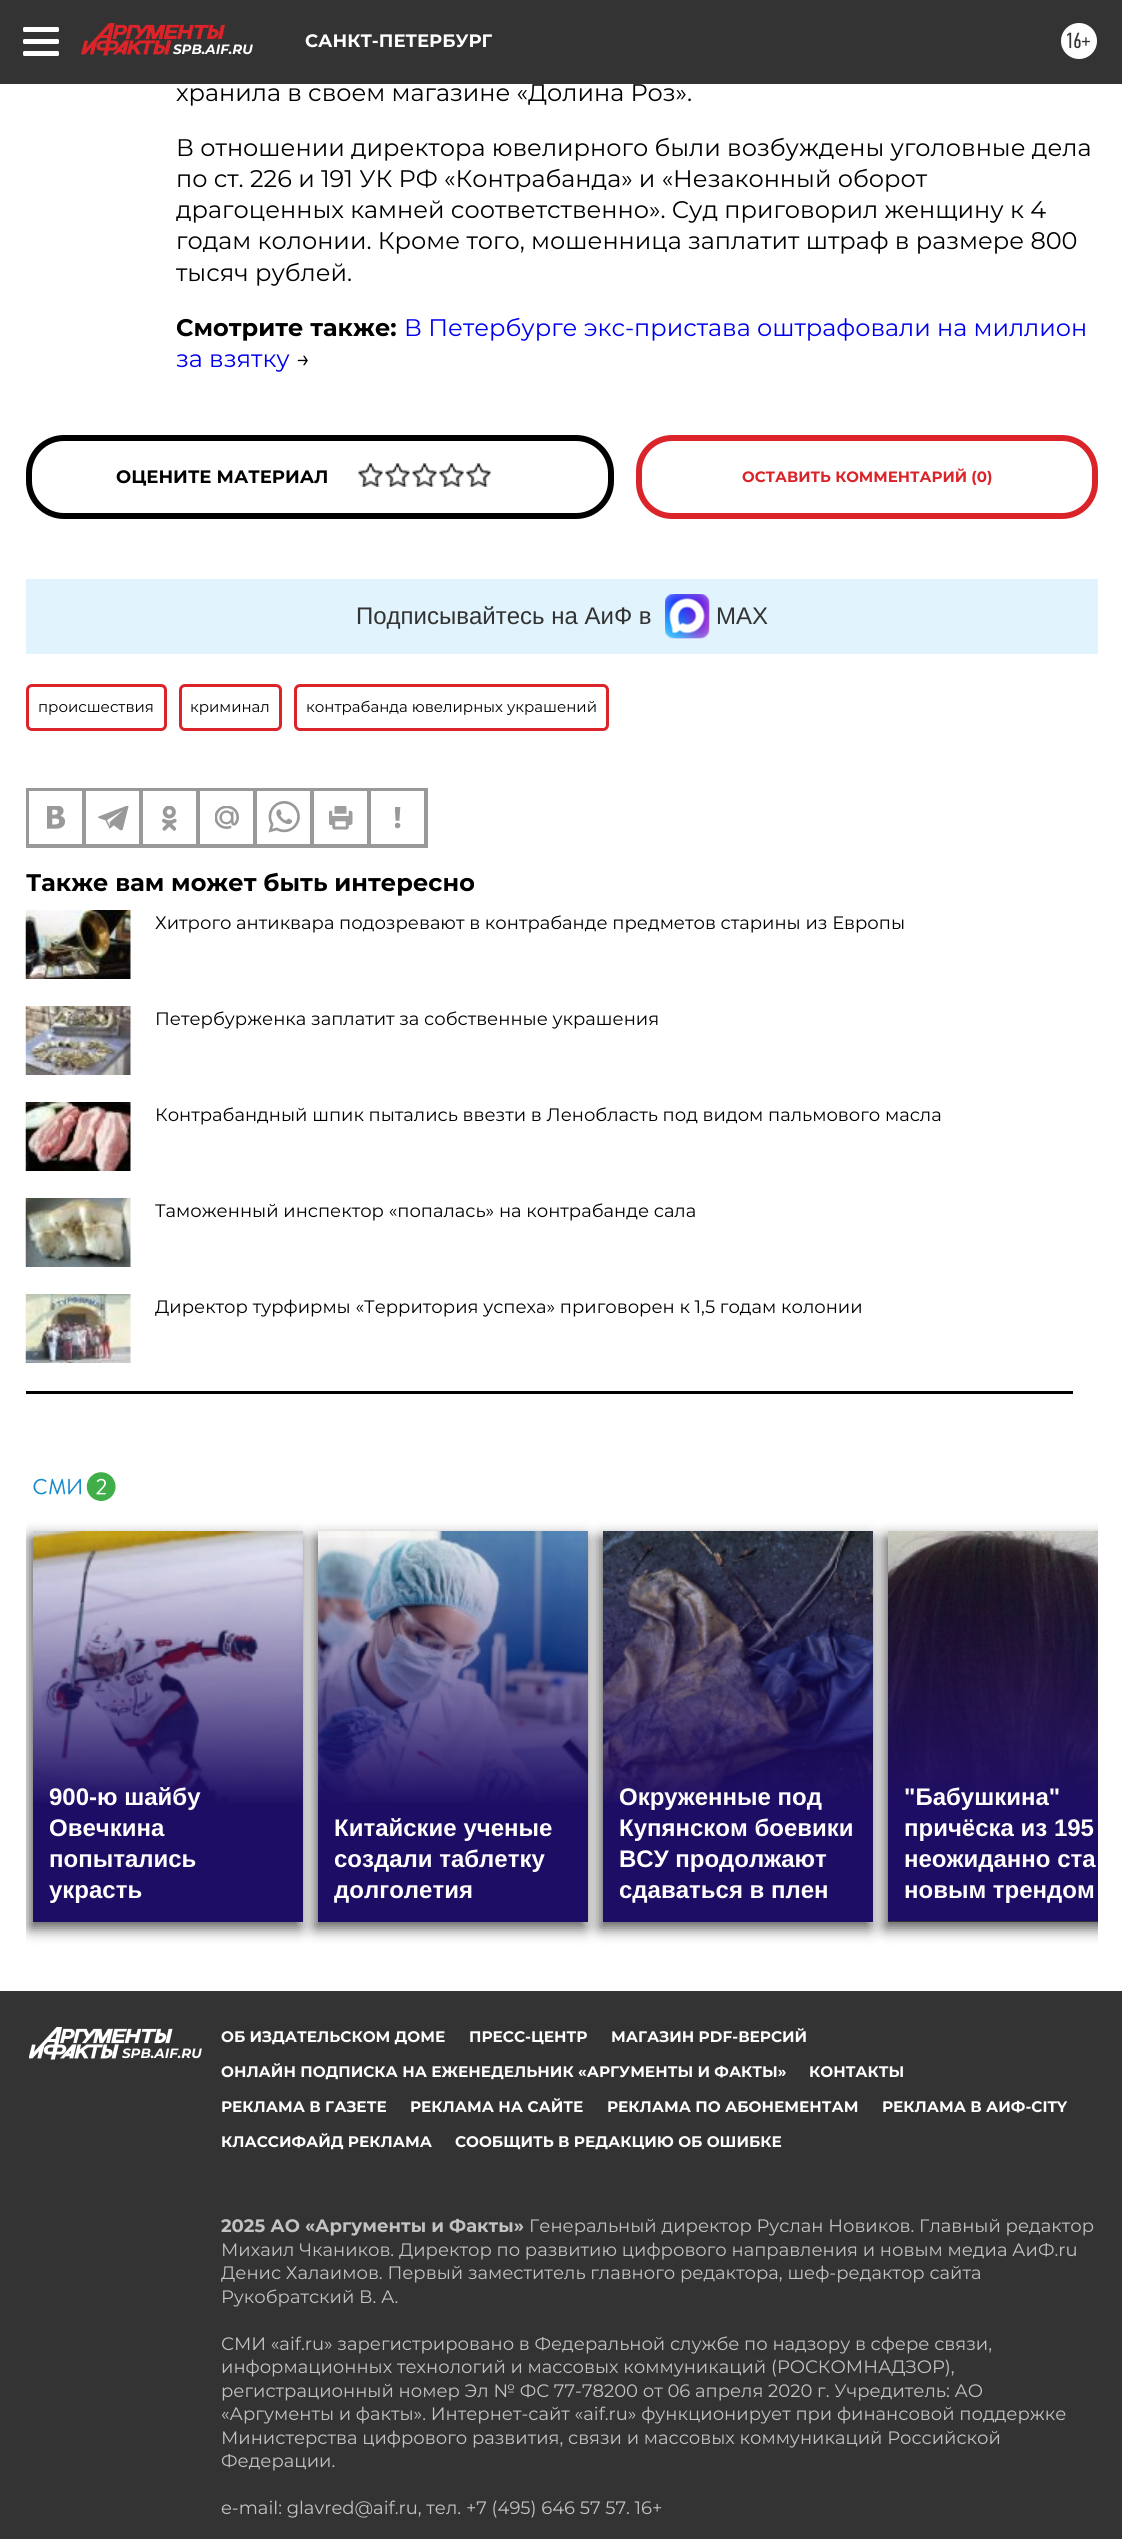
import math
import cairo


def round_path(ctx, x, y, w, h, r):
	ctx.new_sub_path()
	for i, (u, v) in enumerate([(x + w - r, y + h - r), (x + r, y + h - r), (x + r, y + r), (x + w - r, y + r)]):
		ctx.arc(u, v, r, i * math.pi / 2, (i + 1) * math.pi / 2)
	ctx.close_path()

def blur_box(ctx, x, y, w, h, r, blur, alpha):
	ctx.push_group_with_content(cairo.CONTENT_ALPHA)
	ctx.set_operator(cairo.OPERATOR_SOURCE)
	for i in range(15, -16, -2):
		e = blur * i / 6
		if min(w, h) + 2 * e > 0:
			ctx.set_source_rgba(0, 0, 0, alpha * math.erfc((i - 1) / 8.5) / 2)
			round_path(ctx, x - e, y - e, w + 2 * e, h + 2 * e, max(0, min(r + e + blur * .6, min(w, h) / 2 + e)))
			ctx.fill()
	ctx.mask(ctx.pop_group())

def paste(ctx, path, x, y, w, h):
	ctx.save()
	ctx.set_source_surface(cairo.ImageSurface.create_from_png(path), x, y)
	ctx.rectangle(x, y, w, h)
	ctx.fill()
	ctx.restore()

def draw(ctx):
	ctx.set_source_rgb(1, 1, 1)
	ctx.paint()
	ctx.set_source_rgb(0.2, 0.2, 0.2)
	ctx.rectangle(0, 0, 1122, 84)
	ctx.fill()
	ctx.set_source_rgb(1, 1, 1)
	round_path(ctx, 23, 27, 36, 5, 1.5)
	ctx.fill()
	round_path(ctx, 23, 39, 36, 5, 1.5)
	ctx.fill()
	round_path(ctx, 23, 51, 36, 5, 1.5)
	ctx.fill()
	ctx.select_font_face('Montserrat', cairo.FONT_SLANT_NORMAL, cairo.FONT_WEIGHT_BOLD)
	ctx.set_font_size(18)
	ctx.move_to(305, 47)
	ctx.show_text('САНКТ-ПЕТЕРБУРГ')
	ctx.new_path()
	ctx.arc(1079, 41, 18, 0, 2 * math.pi)
	ctx.fill()
	ctx.select_font_face('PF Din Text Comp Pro')
	ctx.set_font_size(22)
	ctx.set_source_rgb(0.2, 0.2, 0.2)
	ctx.move_to(1065, 48)
	ctx.show_text('16+')
	paste(ctx, 'media/1.png', 81, 23, 144, 33)
	ctx.select_font_face('Montserrat', cairo.FONT_SLANT_ITALIC, cairo.FONT_WEIGHT_BOLD)
	ctx.set_font_size(13.5)
	ctx.set_source_rgb(1, 1, 1)
	ctx.move_to(173, 54)
	ctx.show_text('SPB.AIF.RU')
	ctx.select_font_face('Montserrat')
	ctx.set_font_size(24)
	ctx.set_source_rgb(0, 0, 0)
	for x, y, s in [
		(176, 101, 'хранила в своем магазине «Долина Роз».'),
		(176, 156, 'В отношении директора ювелирного были возбуждены уголовные дела'),
		(176, 187, 'по ст. 226 и 191 УК РФ «Контрабанда» и «Незаконный оборот'),
		(176, 218, 'драгоценных камней соответственно». Суд приговорил женщину к 4'),
		(176, 249, 'годам колонии. Кроме того, мошенница заплатит штраф в размере 800'),
		(176, 281, 'тысяч рублей.'),
	]:
		ctx.move_to(x, y)
		ctx.show_text(s)
	ctx.select_font_face('Montserrat', cairo.FONT_SLANT_NORMAL, cairo.FONT_WEIGHT_BOLD)
	ctx.move_to(176, 336)
	ctx.show_text('Смотрите также:')
	ctx.select_font_face('Montserrat')
	ctx.set_source_rgb(0, 0, 0.933)
	ctx.move_to(404, 336)
	ctx.show_text('В Петербурге экс-пристава оштрафовали на миллион')
	ctx.move_to(176, 367)
	ctx.show_text('за взятку')
	ctx.set_source_rgb(0, 0, 0)
	ctx.move_to(296, 367)
	ctx.show_text('→')
	round_path(ctx, 29, 438, 582, 78, 35)
	ctx.set_line_width(6)
	ctx.stroke()
	ctx.select_font_face('Montserrat', cairo.FONT_SLANT_NORMAL, cairo.FONT_WEIGHT_BOLD)
	ctx.set_font_size(18)
	ctx.move_to(116, 483)
	ctx.show_text('ОЦЕНИТЕ МАТЕРИАЛ')
	paste(ctx, 'media/2.png', 358, 463, 25, 24)
	paste(ctx, 'media/2.png', 385, 463, 25, 24)
	paste(ctx, 'media/2.png', 412, 463, 25, 24)
	paste(ctx, 'media/2.png', 439, 463, 25, 24)
	paste(ctx, 'media/3.png', 466, 463, 25, 24)
	round_path(ctx, 639, 438, 456, 78, 33)
	ctx.set_source_rgb(0.855, 0.141, 0.161)
	ctx.stroke()
	ctx.set_font_size(15)
	ctx.move_to(742, 482)
	ctx.show_text('ОСТАВИТЬ КОММЕНТАРИЙ (0)')
	ctx.set_source_rgb(0.882, 0.953, 0.988)
	ctx.rectangle(26, 579, 1072, 75)
	ctx.fill()
	ctx.select_font_face('Liberation Sans')
	ctx.set_font_size(24)
	ctx.set_source_rgb(0.2, 0.2, 0.2)
	ctx.move_to(356, 624)
	ctx.show_text('Подписывайтесь на АиФ в')
	paste(ctx, 'media/4.png', 665, 594, 45, 45)
	ctx.move_to(716, 624)
	ctx.show_text('MAX')
	round_path(ctx, 27.5, 685.5, 138, 44, 4.5)
	ctx.set_source_rgb(0.855, 0.141, 0.161)
	ctx.set_line_width(3)
	ctx.stroke()
	ctx.select_font_face('Montserrat')
	ctx.set_font_size(15)
	ctx.set_source_rgb(0, 0, 0)
	ctx.move_to(38, 712)
	ctx.show_text('происшествия')
	round_path(ctx, 180.5, 685.5, 100, 44, 4.5)
	ctx.set_source_rgb(0.855, 0.141, 0.161)
	ctx.stroke()
	ctx.set_source_rgb(0, 0, 0)
	ctx.move_to(190, 712)
	ctx.show_text('криминал')
	round_path(ctx, 295.5, 685.5, 312, 44, 4.5)
	ctx.set_source_rgb(0.855, 0.141, 0.161)
	ctx.stroke()
	ctx.set_source_rgb(0, 0, 0)
	ctx.move_to(306, 712)
	ctx.show_text('контрабанда ювелирных украшений')
	ctx.rectangle(27, 789, 400, 58)
	ctx.set_source_rgb(0.6, 0.6, 0.6)
	ctx.set_line_width(2)
	ctx.stroke()
	ctx.rectangle(28, 790, 55, 55)
	ctx.stroke()
	paste(ctx, 'media/5.png', 47, 806, 19, 23)
	ctx.rectangle(85, 790, 55, 55)
	ctx.stroke()
	paste(ctx, 'media/6.png', 98, 806, 31, 25)
	ctx.rectangle(142, 790, 55, 55)
	ctx.stroke()
	paste(ctx, 'media/7.png', 162, 806, 15, 25)
	ctx.rectangle(199, 790, 55, 55)
	ctx.stroke()
	paste(ctx, 'media/8.png', 215, 806, 24, 23)
	ctx.rectangle(256, 790, 55, 55)
	ctx.stroke()
	paste(ctx, 'media/9.png', 268, 801, 32, 32)
	ctx.rectangle(313, 790, 55, 55)
	ctx.stroke()
	paste(ctx, 'media/10.png', 329, 806, 24, 24)
	ctx.rectangle(370, 790, 55, 55)
	ctx.stroke()
	paste(ctx, 'media/11.png', 395, 807, 6, 22)
	ctx.select_font_face('Montserrat', cairo.FONT_SLANT_NORMAL, cairo.FONT_WEIGHT_BOLD)
	ctx.set_font_size(24)
	ctx.set_source_rgb(0, 0, 0)
	ctx.move_to(26, 891)
	ctx.show_text('Также вам может быть интересно')
	ctx.rectangle(26, 1391, 1047, 3)
	ctx.fill()
	paste(ctx, 'media/12.png', 25, 910, 106, 69)
	ctx.select_font_face('Montserrat')
	ctx.set_font_size(18)
	ctx.move_to(155, 929)
	ctx.show_text('Хитрого антиквара подозревают в контрабанде предметов старины из Европы')
	paste(ctx, 'media/13.png', 25, 1006, 106, 69)
	ctx.move_to(155, 1025)
	ctx.show_text('Петербурженка заплатит за собственные украшения')
	paste(ctx, 'media/14.png', 25, 1102, 106, 69)
	ctx.move_to(155, 1121)
	ctx.show_text('Контрабандный шпик пытались ввезти в Ленобласть под видом пальмового масла')
	paste(ctx, 'media/15.png', 25, 1198, 106, 69)
	ctx.move_to(155, 1217)
	ctx.show_text('Таможенный инспектор «попалась» на контрабанде сала')
	paste(ctx, 'media/16.png', 25, 1294, 106, 69)
	ctx.move_to(155, 1313)
	ctx.show_text('Директор турфирмы «Территория успеха» приговорен к 1,5 годам колонии')
	paste(ctx, 'media/17.png', 33, 1472, 83, 29)
	ctx.save()
	ctx.rectangle(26, 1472, 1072, 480)
	ctx.clip()
	ctx.set_source_rgb(0.337, 0.329, 0.329)
	blur_box(ctx, 30, 1538, 270, 390, 0, 7.5, 1)
	ctx.restore()
	paste(ctx, 'media/18.png', 33, 1531, 270, 272)
	ctx.set_source_rgb(0.337, 0.329, 0.329)
	blur_box(ctx, 315, 1538, 270, 390, 0, 7.5, 1)
	gradient = cairo.LinearGradient(168, 1922, 168, 1532)
	gradient.add_color_stop_rgba(0.3, 0.118, 0.051, 0.392, 1)
	gradient.add_color_stop_rgba(1, 0.118, 0.051, 0.392, 0)
	ctx.set_source(gradient)
	ctx.rectangle(33, 1538, 270, 384)
	ctx.fill()
	ctx.select_font_face('Liberation Sans', cairo.FONT_SLANT_NORMAL, cairo.FONT_WEIGHT_BOLD)
	ctx.set_font_size(24)
	ctx.set_source_rgb(1, 1, 1)
	for x, y, s in [
		(49, 1805, '900-ю шайбу'),
		(49, 1836, 'Овечкина'),
		(49, 1867, 'попытались'),
		(49, 1898, 'украсть'),
	]:
		ctx.move_to(x, y)
		ctx.show_text(s)
	paste(ctx, 'media/19.png', 318, 1531, 270, 272)
	ctx.set_source_rgb(0.337, 0.329, 0.329)
	blur_box(ctx, 600, 1538, 270, 390, 0, 7.5, 1)
	gradient = cairo.LinearGradient(453, 1922, 453, 1532)
	gradient.add_color_stop_rgba(0.3, 0.118, 0.051, 0.392, 1)
	gradient.add_color_stop_rgba(1, 0.118, 0.051, 0.392, 0)
	ctx.set_source(gradient)
	ctx.rectangle(318, 1538, 270, 384)
	ctx.fill()
	ctx.set_source_rgb(1, 1, 1)
	for x, y, s in [
		(334, 1836, 'Китайские ученые'),
		(334, 1867, 'создали таблетку'),
		(334, 1898, 'долголетия'),
	]:
		ctx.move_to(x, y)
		ctx.show_text(s)
	paste(ctx, 'media/20.png', 603, 1531, 270, 272)
	ctx.save()
	ctx.rectangle(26, 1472, 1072, 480)
	ctx.clip()
	ctx.set_source_rgb(0.337, 0.329, 0.329)
	blur_box(ctx, 885, 1538, 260, 390, 0, 7.5, 1)
	ctx.restore()
	gradient = cairo.LinearGradient(738, 1922, 738, 1532)
	gradient.add_color_stop_rgba(0.3, 0.118, 0.051, 0.392, 1)
	gradient.add_color_stop_rgba(1, 0.118, 0.051, 0.392, 0)
	ctx.set_source(gradient)
	ctx.rectangle(603, 1538, 270, 384)
	ctx.fill()
	ctx.set_source_rgb(1, 1, 1)
	for x, y, s in [
		(619, 1805, 'Окруженные под'),
		(619, 1836, 'Купянском боевики'),
		(619, 1867, 'ВСУ продолжают'),
		(619, 1898, 'сдаваться в плен'),
	]:
		ctx.move_to(x, y)
		ctx.show_text(s)
	ctx.set_source_rgb(0.2, 0.2, 0.2)
	ctx.rectangle(888, 1921, 210, 1)
	ctx.fill()
	paste(ctx, 'media/21.png', 888, 1531, 210, 390)
	ctx.set_source_rgb(1, 1, 1)
	for x, y, s in [
		(904, 1805, '"Бабушкина"'),
		(904, 1836, 'причёска из 195'),
		(904, 1867, 'неожиданно ста'),
		(904, 1898, 'новым трендом'),
	]:
		ctx.move_to(x, y)
		ctx.show_text(s)
	ctx.set_source_rgb(0.2, 0.2, 0.2)
	ctx.rectangle(0, 1991, 1122, 548)
	ctx.fill()
	paste(ctx, 'media/22.png', 29, 2027, 144, 33)
	ctx.select_font_face('Montserrat', cairo.FONT_SLANT_ITALIC, cairo.FONT_WEIGHT_BOLD)
	ctx.set_font_size(13.5)
	ctx.set_source_rgb(1, 1, 1)
	ctx.move_to(122, 2058)
	ctx.show_text('SPB.AIF.RU')
	ctx.select_font_face('Montserrat', cairo.FONT_SLANT_NORMAL, cairo.FONT_WEIGHT_BOLD)
	ctx.set_font_size(15.3)
	for x, y, s in [
		(221, 2042, 'ОБ ИЗДАТЕЛЬСКОМ ДОМЕ'),
		(469, 2042, 'ПРЕСС-ЦЕНТР'),
		(611, 2042, 'МАГАЗИН PDF-ВЕРСИЙ'),
		(221, 2077, 'ОНЛАЙН ПОДПИСКА НА ЕЖЕНЕДЕЛЬНИК «АРГУМЕНТЫ И ФАКТЫ»'),
		(809, 2077, 'КОНТАКТЫ'),
		(221, 2112, 'РЕКЛАМА В ГАЗЕТЕ'),
		(410, 2112, 'РЕКЛАМА НА САЙТЕ'),
		(607, 2112, 'РЕКЛАМА ПО АБОНЕМЕНТАМ'),
		(882, 2112, 'РЕКЛАМА В АИФ-CITY'),
		(221, 2147, 'КЛАССИФАЙД РЕКЛАМА'),
		(455, 2147, 'СООБЩИТЬ В РЕДАКЦИЮ ОБ ОШИБКЕ'),
	]:
		ctx.move_to(x, y)
		ctx.show_text(s)
	ctx.set_font_size(18)
	ctx.set_source_rgb(0.761, 0.761, 0.761)
	ctx.move_to(221, 2232)
	ctx.show_text('2025 АО «Аргументы и Факты»')
	ctx.select_font_face('Montserrat')
	for x, y, s in [
		(529, 2232, 'Генеральный директор Руслан Новиков. Главный редактор'),
		(221, 2256, 'Михаил Чкаников. Директор по развитию цифрового направления и новым медиа АиФ.ru'),
		(221, 2279, 'Денис Халаимов. Первый заместитель главного редактора, шеф-редактор сайта'),
		(221, 2303, 'Рукобратский В. А.'),
		(221, 2350, 'СМИ «aif.ru» зарегистрировано в Федеральной службе по надзору в сфере связи,'),
		(221, 2373, 'информационных технологий и массовых коммуникаций (РОСКОМНАДЗОР),'),
		(221, 2397, 'регистрационный номер Эл № ФС 77-78200 от 06 апреля 2020 г. Учредитель: АО'),
		(221, 2420, '«Аргументы и факты». Интернет-сайт «aif.ru» функционирует при финансовой поддержке'),
		(221, 2444, 'Министерства цифрового развития, связи и массовых коммуникаций Российской'),
		(221, 2467, 'Федерации.'),
		(221, 2514, 'e-mail: glavred@aif.ru, тел. +7 (495) 646 57 57. 16+'),
	]:
		ctx.move_to(x, y)
		ctx.show_text(s)


surface = cairo.ImageSurface(cairo.FORMAT_RGB24, 1122, 2539)
ctx = cairo.Context(surface)
options = cairo.FontOptions()
options.set_hint_metrics(cairo.HINT_METRICS_OFF)
options.set_hint_style(cairo.HINT_STYLE_NONE)
ctx.set_font_options(options)
ctx.set_miter_limit(4)
draw(ctx)
surface.write_to_png('image.png')
